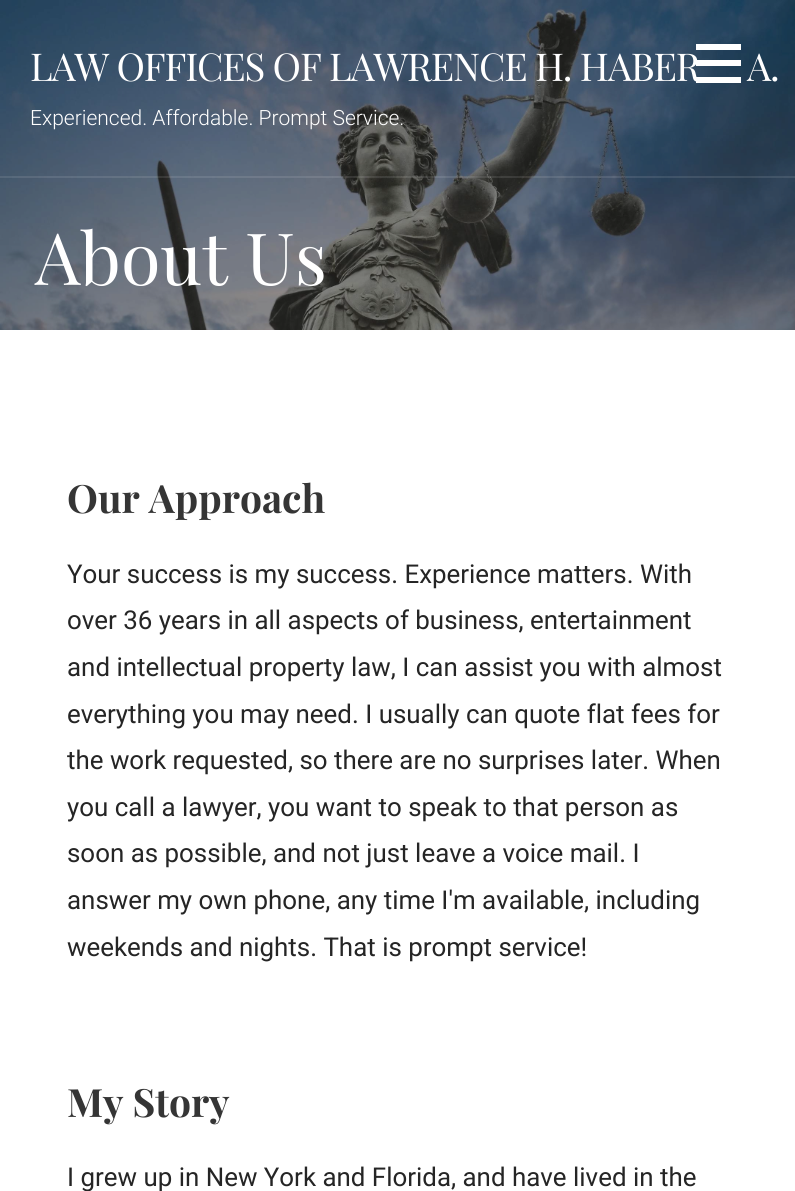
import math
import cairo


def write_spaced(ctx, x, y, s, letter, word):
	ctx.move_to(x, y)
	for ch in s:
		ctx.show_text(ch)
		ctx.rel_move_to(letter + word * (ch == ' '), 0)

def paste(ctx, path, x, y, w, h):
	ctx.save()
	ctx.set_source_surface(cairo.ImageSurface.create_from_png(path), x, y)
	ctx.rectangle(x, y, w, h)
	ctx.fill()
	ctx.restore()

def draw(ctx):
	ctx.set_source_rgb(1, 1, 1)
	ctx.paint()
	paste(ctx, 'media/1.png', 0, 0, 795, 330)
	ctx.set_source_rgba(1, 1, 1, 0.1)
	ctx.rectangle(0, 176, 795, 2)
	ctx.fill()
	ctx.set_source_rgb(1, 1, 1)
	ctx.rectangle(696, 44, 45, 6)
	ctx.rectangle(696, 60, 45, 6)
	ctx.rectangle(696, 77, 45, 6)
	ctx.fill()
	ctx.select_font_face('Playfair Display')
	ctx.set_font_size(38.4)
	write_spaced(ctx, 30, 81, 'LAW OFFICES OF LAWRENCE H. HABER', -1.15, 0)
	write_spaced(ctx, 747, 81, 'A.', -1.15, 0)
	ctx.select_font_face('Roboto Light')
	ctx.set_font_size(21)
	ctx.move_to(30, 125)
	ctx.show_text('Experienced. Affordable. Prompt Service.')
	ctx.select_font_face('Playfair Display')
	ctx.set_font_size(72)
	ctx.move_to(35, 285)
	ctx.show_text('About Us')
	ctx.select_font_face('Playfair Display', cairo.FONT_SLANT_NORMAL, cairo.FONT_WEIGHT_BOLD)
	ctx.set_font_size(39)
	ctx.set_source_rgb(0.208, 0.208, 0.208)
	ctx.move_to(67, 513)
	ctx.show_text('Our Approach')
	ctx.select_font_face('Roboto')
	ctx.set_font_size(25.9)
	ctx.set_source_rgb(0.145, 0.145, 0.145)
	for x, y, s in [
		(67, 583, 'Your success is my success. Experience matters. With'),
		(67, 629, 'over 36 years in all aspects of business, entertainment'),
		(67, 676, 'and intellectual property law, I can assist you with almost'),
		(67, 723, 'everything you may need. I usually can quote flat fees for'),
		(67, 769, 'the work requested, so there are no surprises later. When'),
		(67, 816, 'you call a lawyer, you want to speak to that person as'),
		(67, 862, 'soon as possible, and not just leave a voice mail. I'),
		(67, 909, 'answer my own phone, any time I\'m available, including'),
		(67, 956, 'weekends and nights. That is prompt service!'),
	]:
		ctx.move_to(x, y)
		ctx.show_text(s)
	ctx.select_font_face('Playfair Display', cairo.FONT_SLANT_NORMAL, cairo.FONT_WEIGHT_BOLD)
	ctx.set_font_size(39)
	ctx.set_source_rgb(0.208, 0.208, 0.208)
	ctx.move_to(67, 1117)
	ctx.show_text('My Story')
	ctx.select_font_face('Roboto')
	ctx.set_font_size(25.9)
	ctx.set_source_rgb(0.145, 0.145, 0.145)
	ctx.move_to(67, 1186)
	ctx.show_text('I grew up in New York and Florida, and have lived in the')


surface = cairo.ImageSurface(cairo.FORMAT_RGB24, 795, 1191)
ctx = cairo.Context(surface)
options = cairo.FontOptions()
options.set_hint_metrics(cairo.HINT_METRICS_OFF)
options.set_hint_style(cairo.HINT_STYLE_NONE)
ctx.set_font_options(options)
ctx.set_miter_limit(4)
draw(ctx)
surface.write_to_png('image.png')
